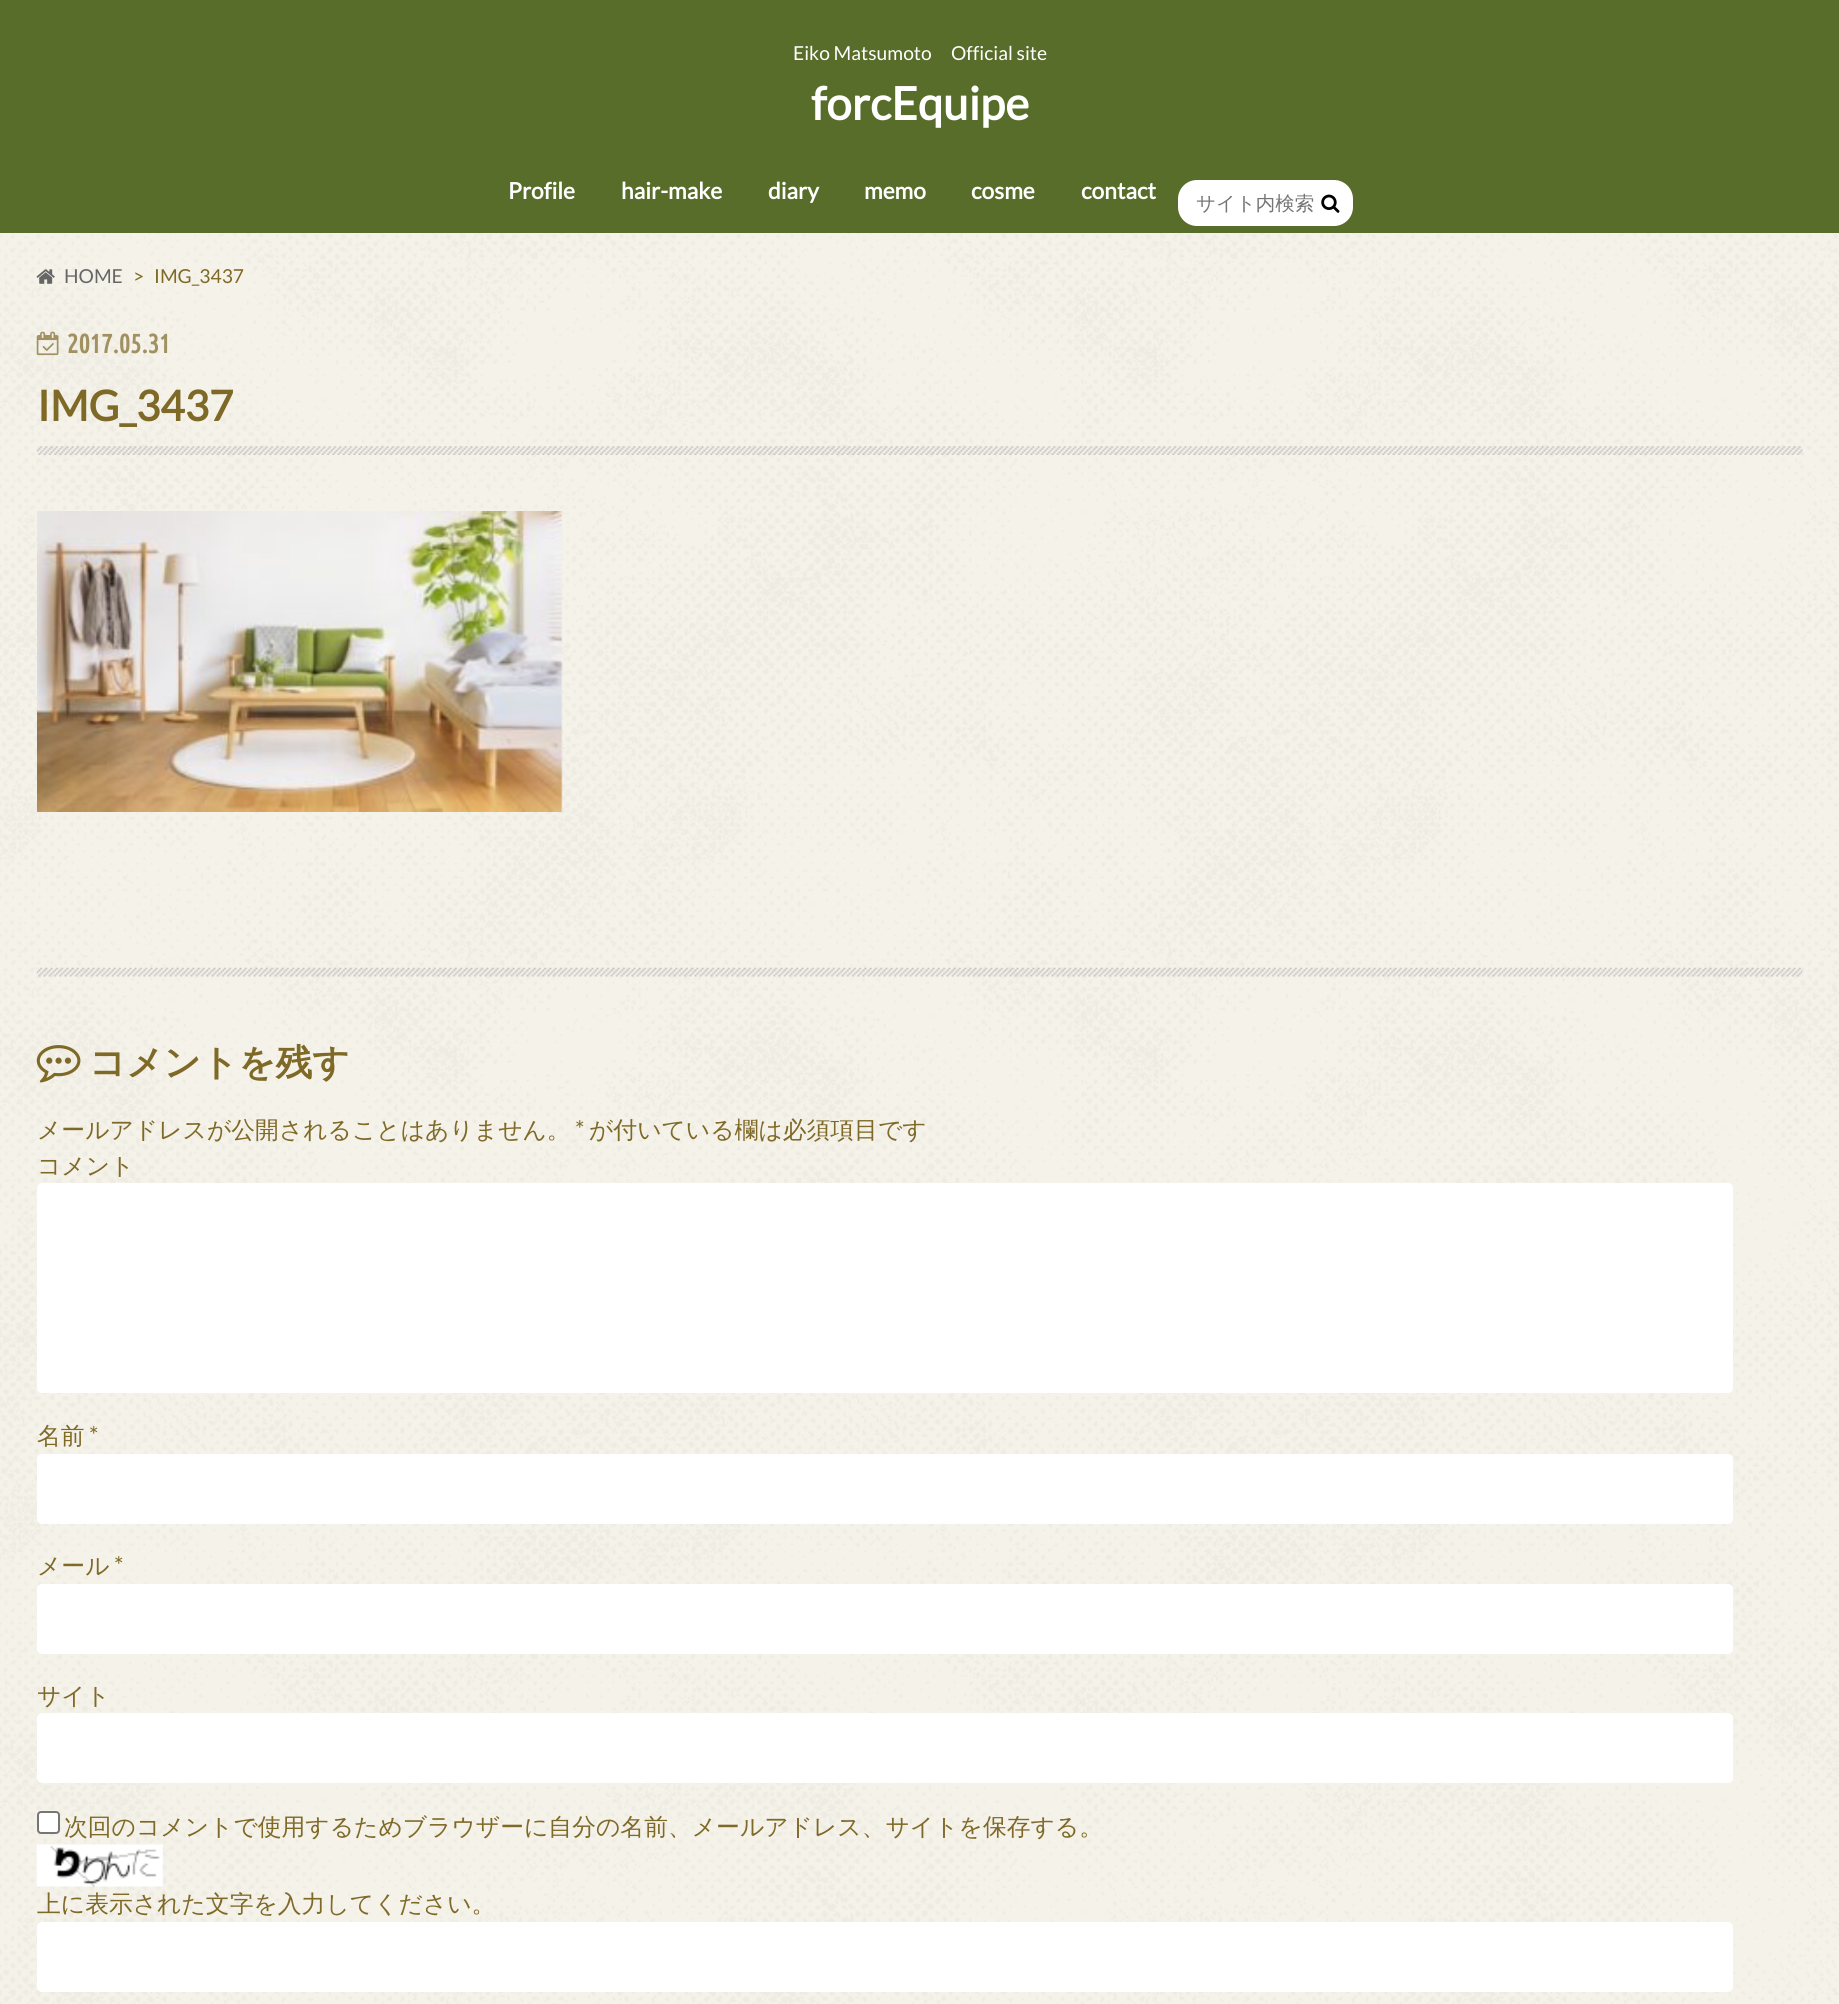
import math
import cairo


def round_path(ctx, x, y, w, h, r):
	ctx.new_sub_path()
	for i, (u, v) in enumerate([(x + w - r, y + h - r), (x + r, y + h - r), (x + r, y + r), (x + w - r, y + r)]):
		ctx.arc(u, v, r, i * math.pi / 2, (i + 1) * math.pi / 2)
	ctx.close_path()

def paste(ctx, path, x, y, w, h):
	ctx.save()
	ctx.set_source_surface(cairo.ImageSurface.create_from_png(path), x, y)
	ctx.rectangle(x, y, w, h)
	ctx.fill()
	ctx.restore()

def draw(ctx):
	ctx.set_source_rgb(1, 1, 1)
	ctx.paint()
	paste(ctx, 'media/1.png', 0, 233, 1839, 1771)
	ctx.set_source_rgb(0.345, 0.427, 0.165)
	ctx.rectangle(0, 0, 1839, 233)
	ctx.fill()
	ctx.select_font_face('Lato')
	ctx.set_font_size(19.25)
	ctx.set_source_rgb(1, 1, 1)
	ctx.move_to(793, 60)
	ctx.show_text('Eiko Matsumoto')
	ctx.move_to(951, 60)
	ctx.show_text('Official site')
	ctx.select_font_face('Lato', cairo.FONT_SLANT_NORMAL, cairo.FONT_WEIGHT_BOLD)
	ctx.set_font_size(45.5)
	ctx.move_to(811, 120)
	ctx.show_text('forcEquipe')
	ctx.set_font_size(22.75)
	for x, y, s in [
		(508, 199, 'Profile'),
		(621, 199, 'hair-make'),
		(768, 199, 'diary'),
		(864, 199, 'memo'),
		(971, 199, 'cosme'),
		(1081, 199, 'contact'),
	]:
		ctx.move_to(x, y)
		ctx.show_text(s)
	round_path(ctx, 1178, 180, 175, 46, 19)
	ctx.fill()
	ctx.select_font_face('WenQuanYi Zen Hei Medium')
	ctx.set_font_size(19.5)
	ctx.set_source_rgb(0.459, 0.459, 0.459)
	ctx.move_to(1196, 210)
	ctx.show_text('サイト内検索')
	paste(ctx, 'media/2.png', 1321, 194, 19, 19)
	paste(ctx, 'media/3.png', 36, 269, 19, 15)
	ctx.select_font_face('Lato')
	ctx.set_font_size(19.25)
	ctx.set_source_rgb(0.4, 0.4, 0.4)
	ctx.move_to(64, 283)
	ctx.show_text('HOME')
	ctx.set_source_rgb(0.498, 0.412, 0.153)
	ctx.move_to(133, 283)
	ctx.show_text('>')
	ctx.move_to(154, 283)
	ctx.show_text('IMG_3437')
	paste(ctx, 'media/4.png', 36, 331, 23, 25)
	ctx.select_font_face('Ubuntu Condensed', cairo.FONT_SLANT_NORMAL, cairo.FONT_WEIGHT_BOLD)
	ctx.set_font_size(26.5)
	ctx.set_source_rgb(0.631, 0.569, 0.38)
	ctx.move_to(67, 353)
	ctx.show_text('2017.05.31')
	paste(ctx, 'media/5.png', 37, 446, 1766, 9)
	ctx.select_font_face('Lato', cairo.FONT_SLANT_NORMAL, cairo.FONT_WEIGHT_BOLD)
	ctx.set_font_size(42)
	ctx.set_source_rgb(0.498, 0.412, 0.153)
	ctx.move_to(37, 421)
	ctx.show_text('IMG_3437')
	paste(ctx, 'media/6.png', 37, 511, 526, 301)
	paste(ctx, 'media/7.png', 36, 967, 1767, 10)
	paste(ctx, 'media/8.png', 36, 1045, 45, 38)
	ctx.select_font_face('WenQuanYi Zen Hei', cairo.FONT_SLANT_NORMAL, cairo.FONT_WEIGHT_BOLD)
	ctx.set_font_size(36.5)
	ctx.move_to(89, 1075)
	ctx.show_text('コメントを残す')
	ctx.select_font_face('WenQuanYi Zen Hei Medium')
	ctx.set_font_size(23.8)
	ctx.move_to(37, 1138)
	ctx.show_text('メールアドレスが公開されることはありません。')
	ctx.select_font_face('Lato')
	ctx.move_to(575, 1138)
	ctx.show_text('*')
	ctx.select_font_face('WenQuanYi Zen Hei Medium')
	ctx.move_to(589, 1138)
	ctx.show_text('が付いている欄は必須項目です')
	ctx.move_to(37, 1174)
	ctx.show_text('コメント')
	ctx.set_source_rgb(1, 1, 1)
	round_path(ctx, 37, 1183, 1696, 210, 5)
	ctx.fill()
	ctx.set_source_rgb(0.498, 0.412, 0.153)
	ctx.move_to(37, 1444)
	ctx.show_text('名前')
	ctx.select_font_face('Lato')
	ctx.move_to(89, 1444)
	ctx.show_text('*')
	ctx.set_source_rgb(1, 1, 1)
	round_path(ctx, 37, 1454, 1696, 70, 5)
	ctx.fill()
	ctx.select_font_face('WenQuanYi Zen Hei Medium')
	ctx.set_source_rgb(0.498, 0.412, 0.153)
	ctx.move_to(37, 1574)
	ctx.show_text('メール')
	ctx.select_font_face('Lato')
	ctx.move_to(114, 1574)
	ctx.show_text('*')
	ctx.set_source_rgb(1, 1, 1)
	round_path(ctx, 37, 1584, 1696, 70, 5)
	ctx.fill()
	ctx.select_font_face('WenQuanYi Zen Hei Medium')
	ctx.set_source_rgb(0.498, 0.412, 0.153)
	ctx.move_to(37, 1704)
	ctx.show_text('サイト')
	ctx.set_source_rgb(1, 1, 1)
	round_path(ctx, 37, 1713, 1696, 70, 5)
	ctx.fill()
	round_path(ctx, 38, 1812, 21, 21, 3)
	ctx.fill_preserve()
	ctx.set_source_rgb(0.463, 0.463, 0.463)
	ctx.stroke()
	ctx.set_source_rgb(0.498, 0.412, 0.153)
	ctx.move_to(64, 1835)
	ctx.show_text('次回のコメントで使用するためブラウザーに自分の名前、メールアドレス、サイトを保存する。')
	paste(ctx, 'media/9.png', 36, 1844, 127, 43)
	ctx.move_to(37, 1912)
	ctx.show_text('上に表示された文字を入力してください。')
	ctx.set_source_rgb(1, 1, 1)
	round_path(ctx, 37, 1922, 1696, 70, 5)
	ctx.fill()


surface = cairo.ImageSurface(cairo.FORMAT_RGB24, 1839, 2004)
ctx = cairo.Context(surface)
options = cairo.FontOptions()
options.set_hint_metrics(cairo.HINT_METRICS_OFF)
options.set_hint_style(cairo.HINT_STYLE_NONE)
ctx.set_font_options(options)
ctx.set_miter_limit(4)
draw(ctx)
surface.write_to_png('image.png')
